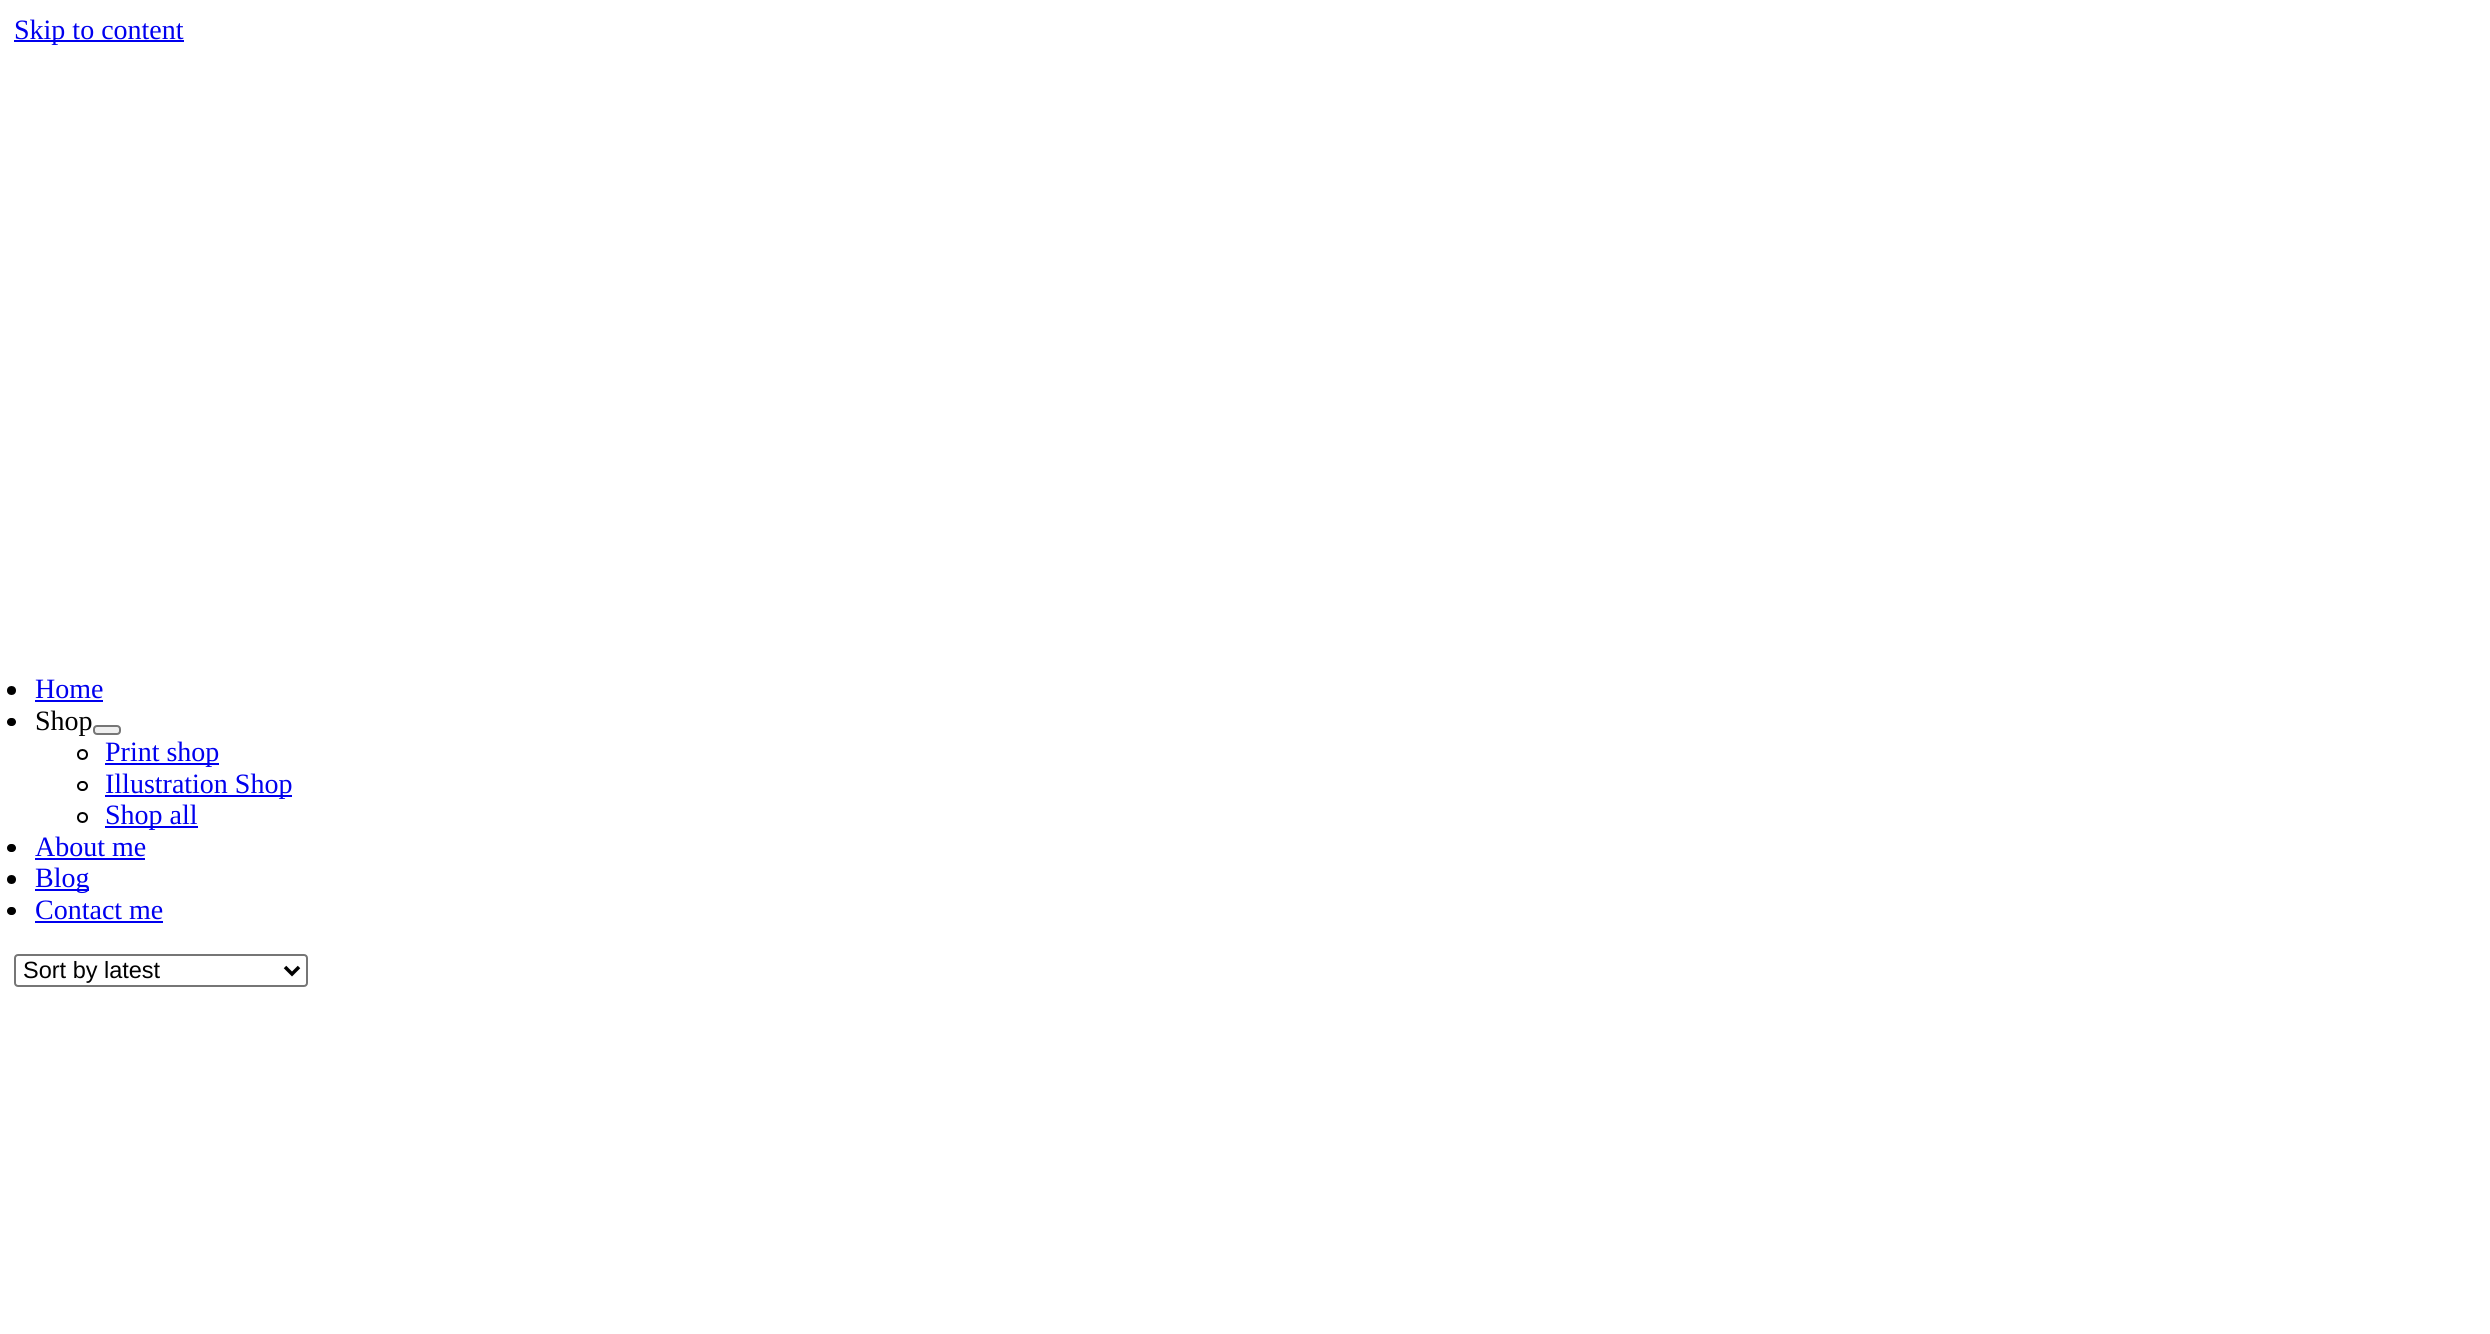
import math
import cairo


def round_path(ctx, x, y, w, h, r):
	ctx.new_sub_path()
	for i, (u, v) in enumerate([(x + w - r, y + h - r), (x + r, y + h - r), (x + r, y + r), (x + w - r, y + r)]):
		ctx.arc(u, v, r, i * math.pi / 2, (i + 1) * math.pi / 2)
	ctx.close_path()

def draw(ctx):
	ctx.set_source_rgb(1, 1, 1)
	ctx.paint()
	ctx.set_source_rgb(0, 0, 0.933)
	ctx.rectangle(14, 40, 170, 2)
	ctx.fill()
	ctx.select_font_face('Liberation Serif')
	ctx.set_font_size(28)
	ctx.move_to(14, 39)
	ctx.show_text('Skip to content')
	ctx.set_source_rgb(0, 0, 0)
	ctx.new_path()
	ctx.arc(11.5, 690.5, 4.5, 0, 2 * math.pi)
	ctx.fill()
	ctx.set_source_rgb(0, 0, 0.933)
	ctx.move_to(35, 698)
	ctx.show_text('Home')
	ctx.rectangle(35, 700, 68, 2)
	ctx.fill()
	ctx.set_source_rgb(0, 0, 0)
	round_path(ctx, 7, 718, 9, 8, 4)
	ctx.fill()
	ctx.move_to(35, 730)
	ctx.show_text('Shop')
	ctx.set_source_rgb(0.937, 0.937, 0.937)
	round_path(ctx, 94, 726, 26, 8, 3)
	ctx.fill_preserve()
	ctx.set_source_rgb(0.463, 0.463, 0.463)
	ctx.stroke()
	ctx.arc(82.5, 754.5, 4.5, 0, 2 * math.pi)
	ctx.set_source_rgb(0, 0, 0)
	ctx.stroke()
	ctx.set_source_rgb(0, 0, 0.933)
	ctx.rectangle(105, 763, 114, 2)
	ctx.fill()
	ctx.move_to(105, 761)
	ctx.show_text('Print shop')
	round_path(ctx, 78, 782, 9, 8, 4)
	ctx.set_source_rgb(0, 0, 0)
	ctx.stroke()
	ctx.set_source_rgb(0, 0, 0.933)
	ctx.rectangle(105, 795, 187, 2)
	ctx.fill()
	ctx.move_to(105, 793)
	ctx.show_text('Illustration Shop')
	ctx.new_path()
	ctx.arc(82.5, 817.5, 4.5, 0, 2 * math.pi)
	ctx.set_source_rgb(0, 0, 0)
	ctx.stroke()
	ctx.set_source_rgb(0, 0, 0.933)
	ctx.rectangle(105, 826, 93, 2)
	ctx.fill()
	ctx.move_to(105, 824)
	ctx.show_text('Shop all')
	ctx.set_source_rgb(0, 0, 0)
	round_path(ctx, 7, 844, 9, 8, 4)
	ctx.fill()
	ctx.set_source_rgb(0, 0, 0.933)
	ctx.move_to(35, 856)
	ctx.show_text('About me')
	ctx.rectangle(35, 858, 110, 2)
	ctx.fill()
	ctx.set_source_rgb(0, 0, 0)
	ctx.arc(11.5, 879.5, 4.5, 0, 2 * math.pi)
	ctx.fill()
	ctx.set_source_rgb(0, 0, 0.933)
	ctx.rectangle(35, 889, 54, 2)
	ctx.fill()
	ctx.move_to(35, 887)
	ctx.show_text('Blog')
	ctx.set_source_rgb(0, 0, 0)
	round_path(ctx, 7, 907, 9, 8, 4)
	ctx.fill()
	ctx.set_source_rgb(0, 0, 0.933)
	ctx.move_to(35, 919)
	ctx.show_text('Contact me')
	ctx.rectangle(35, 921, 128, 2)
	ctx.fill()
	round_path(ctx, 15, 955, 292, 31, 3)
	ctx.set_source_rgb(0.463, 0.463, 0.463)
	ctx.stroke()
	ctx.new_path()
	ctx.move_to(285, 967)
	ctx.line_to(292, 974)
	ctx.line_to(299, 967)
	ctx.set_source_rgb(0, 0, 0)
	ctx.set_line_width(3.5)
	ctx.stroke()
	ctx.select_font_face('Liberation Sans')
	ctx.set_font_size(23.5)
	ctx.move_to(23, 978)
	ctx.show_text('Sort by latest')


surface = cairo.ImageSurface(cairo.FORMAT_RGB24, 2490, 1334)
ctx = cairo.Context(surface)
options = cairo.FontOptions()
options.set_hint_metrics(cairo.HINT_METRICS_OFF)
options.set_hint_style(cairo.HINT_STYLE_NONE)
ctx.set_font_options(options)
ctx.set_miter_limit(4)
draw(ctx)
surface.write_to_png('image.png')
